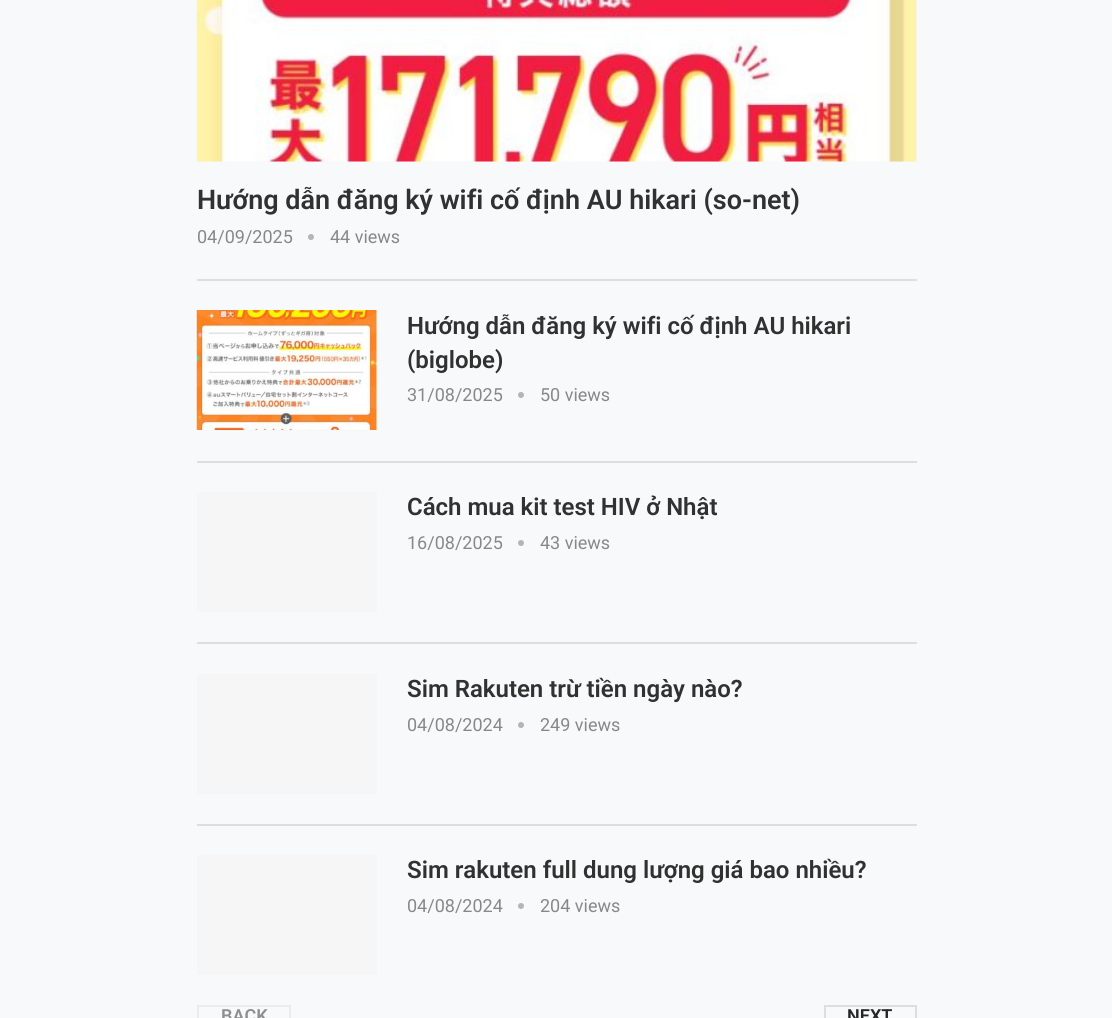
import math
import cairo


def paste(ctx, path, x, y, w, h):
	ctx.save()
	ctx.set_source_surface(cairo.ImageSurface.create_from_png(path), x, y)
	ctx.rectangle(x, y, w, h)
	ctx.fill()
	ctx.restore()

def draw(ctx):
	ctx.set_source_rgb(0.965, 0.973, 0.98)
	ctx.paint()
	ctx.set_source_rgb(0.871, 0.871, 0.871)
	ctx.rectangle(197, 279, 720, 2)
	ctx.fill()
	ctx.set_source_rgb(0.961, 0.961, 0.961)
	ctx.rectangle(197, 0, 720, 162)
	ctx.fill()
	paste(ctx, 'media/1.png', 196, 0, 721, 162)
	ctx.select_font_face('Roboto SemiBold')
	ctx.set_font_size(27)
	ctx.set_source_rgb(0.192, 0.192, 0.192)
	ctx.move_to(197, 209)
	ctx.show_text('Hướng dẫn đăng ký wifi cố định AU hikari (so-net)')
	ctx.select_font_face('Roboto')
	ctx.set_font_size(18)
	ctx.set_source_rgb(0.533, 0.533, 0.533)
	ctx.move_to(197, 243)
	ctx.show_text('04/09/2025')
	ctx.set_source_rgb(0.706, 0.71, 0.714)
	ctx.new_path()
	ctx.arc(311, 237, 3, 0, 2 * math.pi)
	ctx.fill()
	ctx.set_source_rgb(0.533, 0.533, 0.533)
	ctx.move_to(330, 243)
	ctx.show_text('44 views')
	ctx.set_source_rgb(0.871, 0.871, 0.871)
	ctx.rectangle(197, 461, 720, 2)
	ctx.fill()
	ctx.set_source_rgb(0.961, 0.961, 0.961)
	ctx.rectangle(197, 311, 180, 120)
	ctx.fill()
	paste(ctx, 'media/2.png', 196, 310, 181, 120)
	ctx.select_font_face('Roboto SemiBold')
	ctx.set_font_size(24)
	ctx.set_source_rgb(0.192, 0.192, 0.192)
	ctx.move_to(407, 334)
	ctx.show_text('Hướng dẫn đăng ký wifi cố định AU hikari')
	ctx.move_to(407, 368)
	ctx.show_text('(biglobe)')
	ctx.select_font_face('Roboto')
	ctx.set_font_size(18)
	ctx.set_source_rgb(0.533, 0.533, 0.533)
	ctx.move_to(407, 401)
	ctx.show_text('31/08/2025')
	ctx.set_source_rgb(0.706, 0.71, 0.714)
	ctx.new_path()
	ctx.arc(521, 395, 3, 0, 2 * math.pi)
	ctx.fill()
	ctx.set_source_rgb(0.533, 0.533, 0.533)
	ctx.move_to(540, 401)
	ctx.show_text('50 views')
	ctx.set_source_rgb(0.871, 0.871, 0.871)
	ctx.rectangle(197, 642, 720, 2)
	ctx.fill()
	ctx.set_source_rgb(0.961, 0.961, 0.961)
	ctx.rectangle(197, 492, 180, 120)
	ctx.fill()
	ctx.select_font_face('Roboto SemiBold')
	ctx.set_font_size(24)
	ctx.set_source_rgb(0.192, 0.192, 0.192)
	ctx.move_to(407, 515)
	ctx.show_text('Cách mua kit test HIV ở Nhật')
	ctx.select_font_face('Roboto')
	ctx.set_font_size(18)
	ctx.set_source_rgb(0.533, 0.533, 0.533)
	ctx.move_to(407, 549)
	ctx.show_text('16/08/2025')
	ctx.set_source_rgb(0.706, 0.71, 0.714)
	ctx.new_path()
	ctx.arc(521, 543, 3, 0, 2 * math.pi)
	ctx.fill()
	ctx.set_source_rgb(0.533, 0.533, 0.533)
	ctx.move_to(540, 549)
	ctx.show_text('43 views')
	ctx.set_source_rgb(0.871, 0.871, 0.871)
	ctx.rectangle(197, 824, 720, 2)
	ctx.fill()
	ctx.set_source_rgb(0.961, 0.961, 0.961)
	ctx.rectangle(197, 674, 180, 120)
	ctx.fill()
	ctx.select_font_face('Roboto SemiBold')
	ctx.set_font_size(24)
	ctx.set_source_rgb(0.192, 0.192, 0.192)
	ctx.move_to(407, 697)
	ctx.show_text('Sim Rakuten trừ tiền ngày nào?')
	ctx.select_font_face('Roboto')
	ctx.set_font_size(18)
	ctx.set_source_rgb(0.533, 0.533, 0.533)
	ctx.move_to(407, 731)
	ctx.show_text('04/08/2024')
	ctx.set_source_rgb(0.706, 0.71, 0.714)
	ctx.new_path()
	ctx.arc(521, 725, 3, 0, 2 * math.pi)
	ctx.fill()
	ctx.set_source_rgb(0.533, 0.533, 0.533)
	ctx.move_to(540, 731)
	ctx.show_text('249 views')
	ctx.set_source_rgb(0.961, 0.961, 0.961)
	ctx.rectangle(197, 855, 180, 120)
	ctx.fill()
	ctx.select_font_face('Roboto SemiBold')
	ctx.set_font_size(24)
	ctx.set_source_rgb(0.192, 0.192, 0.192)
	ctx.move_to(407, 878)
	ctx.show_text('Sim rakuten full dung lượng giá bao nhiều?')
	ctx.select_font_face('Roboto')
	ctx.set_font_size(18)
	ctx.set_source_rgb(0.533, 0.533, 0.533)
	ctx.move_to(407, 912)
	ctx.show_text('04/08/2024')
	ctx.set_source_rgb(0.706, 0.71, 0.714)
	ctx.new_path()
	ctx.arc(521, 906, 3, 0, 2 * math.pi)
	ctx.fill()
	ctx.set_source_rgb(0.533, 0.533, 0.533)
	ctx.move_to(540, 912)
	ctx.show_text('204 views')
	ctx.rectangle(198, 1006, 92, 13)
	ctx.set_source_rgb(0.918, 0.922, 0.925)
	ctx.stroke()
	ctx.select_font_face('Roboto SemiBold')
	ctx.set_source_rgb(0.557, 0.561, 0.565)
	ctx.move_to(221, 1022)
	ctx.show_text('BACK')
	ctx.rectangle(825, 1006, 91, 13)
	ctx.set_source_rgb(0.871, 0.871, 0.871)
	ctx.stroke()
	ctx.set_source_rgb(0.149, 0.149, 0.149)
	ctx.move_to(847, 1022)
	ctx.show_text('NEXT')


surface = cairo.ImageSurface(cairo.FORMAT_RGB24, 1112, 1018)
ctx = cairo.Context(surface)
options = cairo.FontOptions()
options.set_hint_metrics(cairo.HINT_METRICS_OFF)
options.set_hint_style(cairo.HINT_STYLE_NONE)
ctx.set_font_options(options)
ctx.set_miter_limit(4)
draw(ctx)
surface.write_to_png('image.png')
